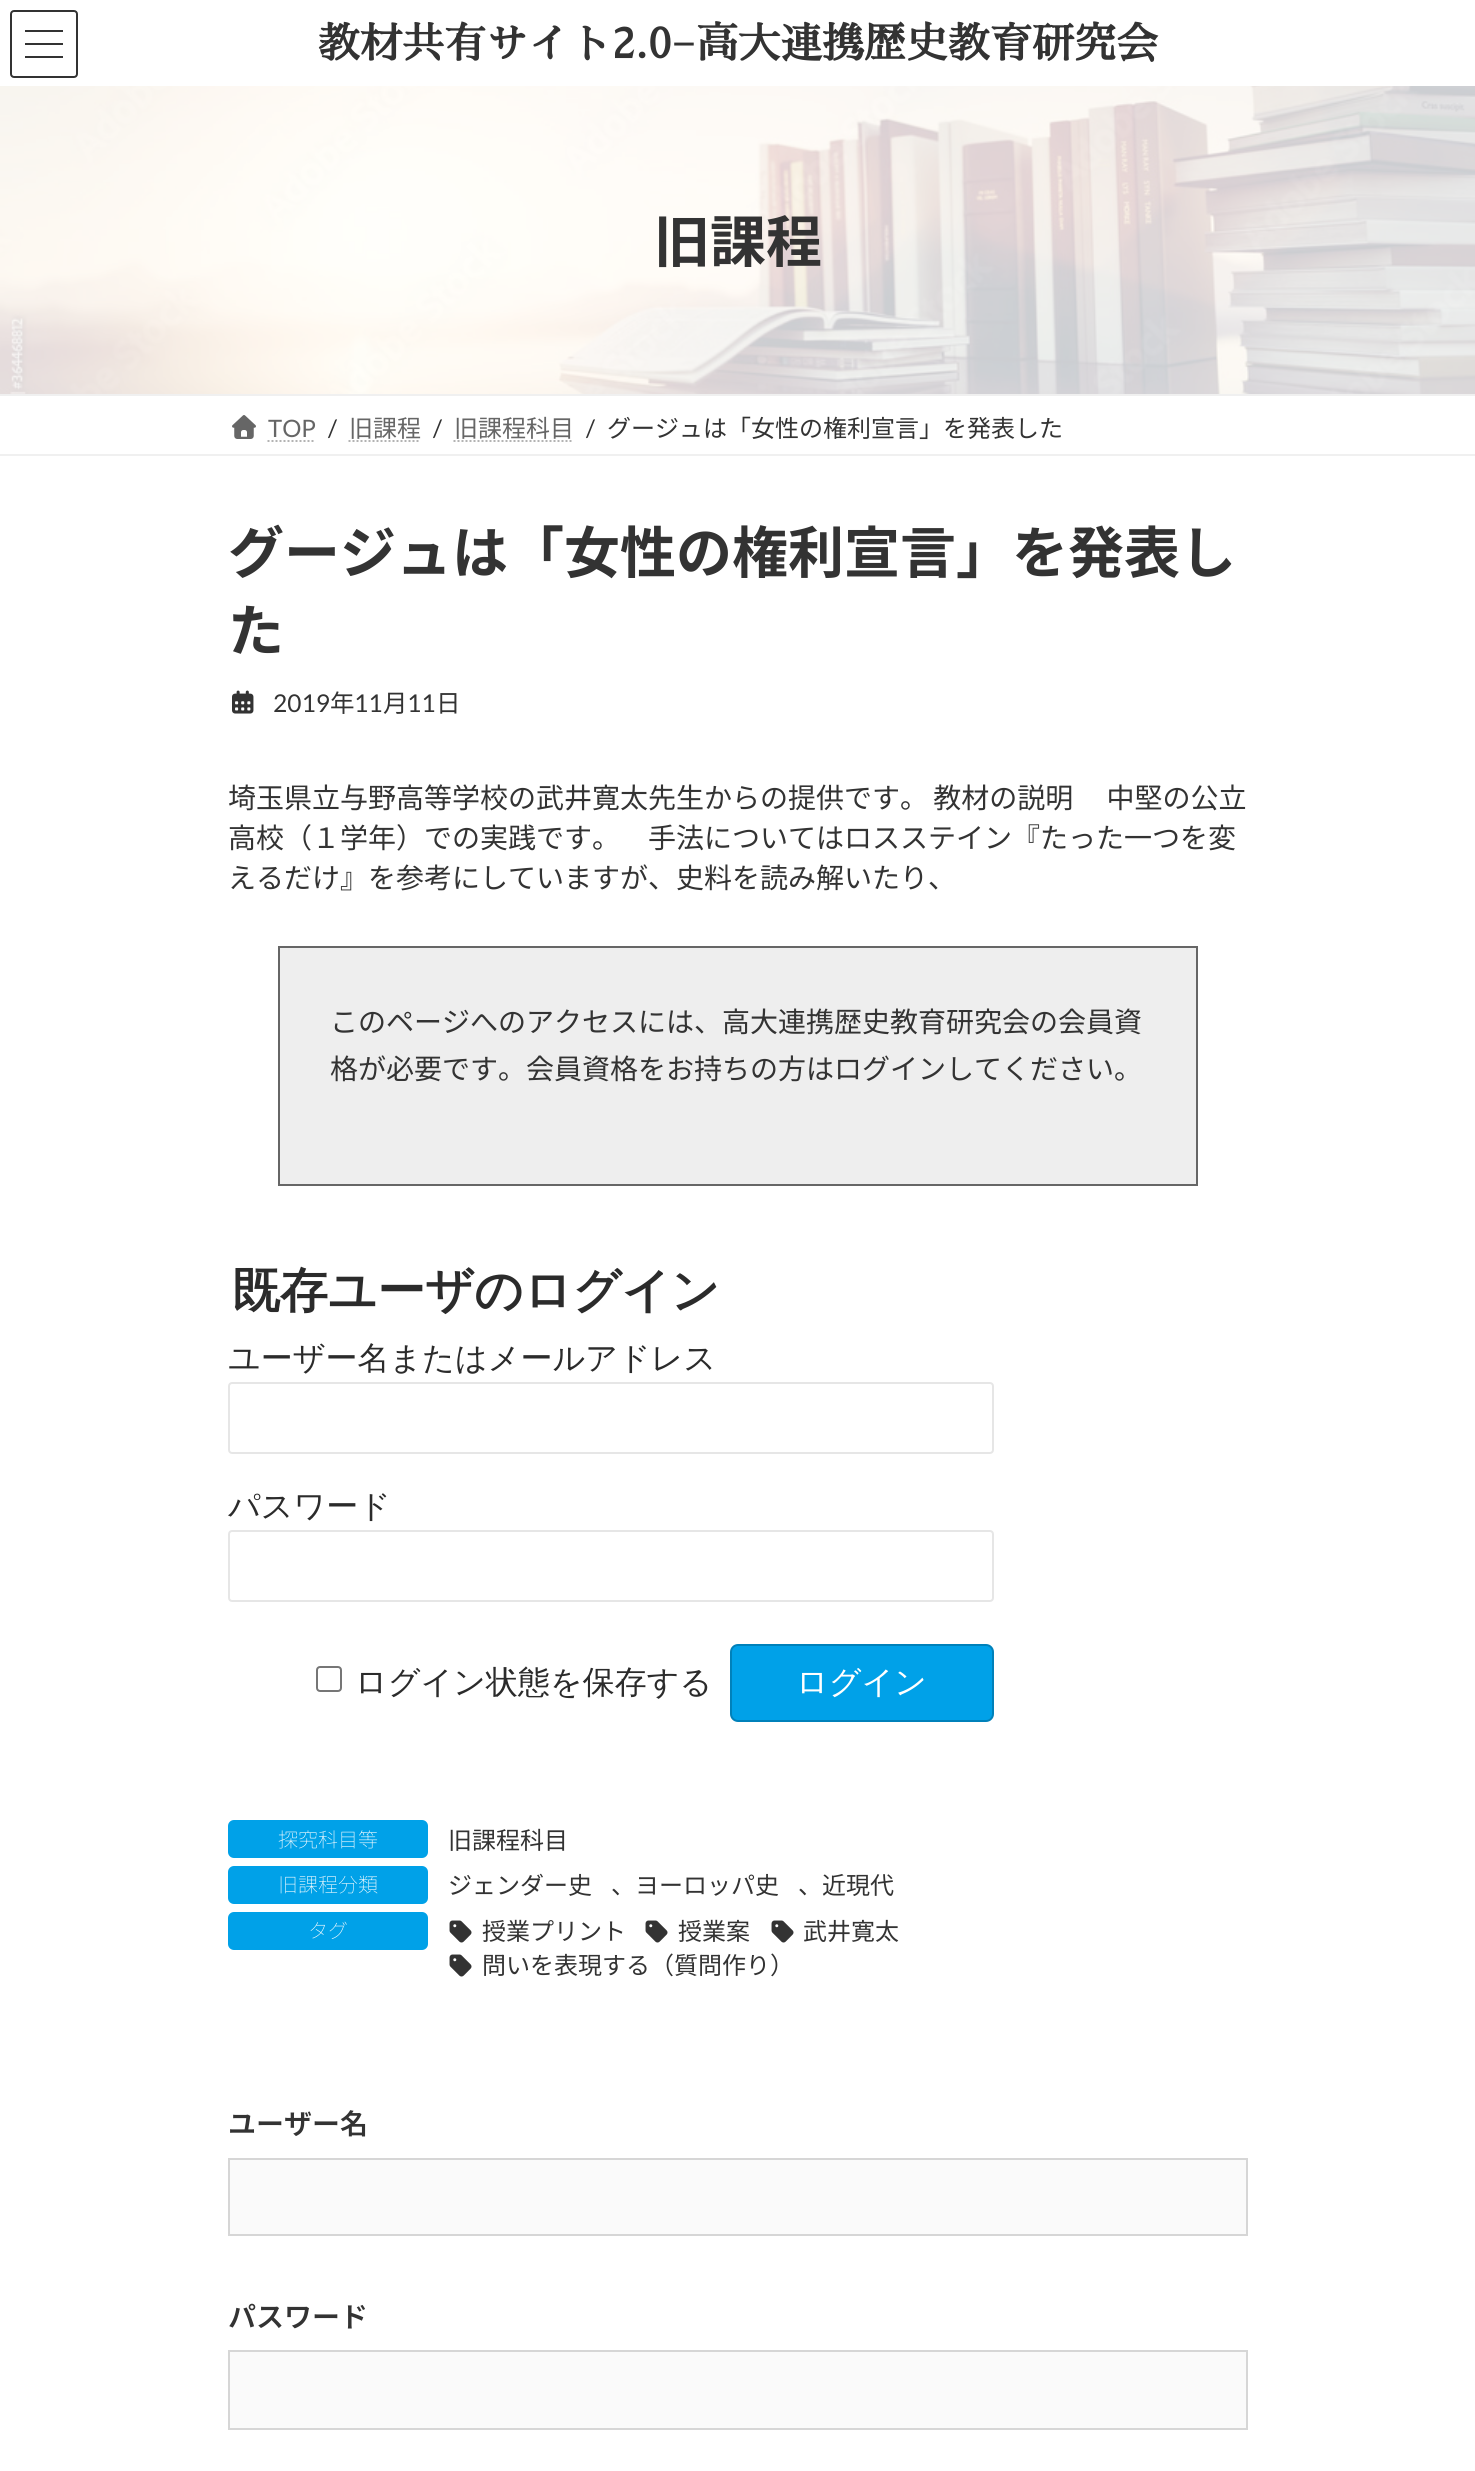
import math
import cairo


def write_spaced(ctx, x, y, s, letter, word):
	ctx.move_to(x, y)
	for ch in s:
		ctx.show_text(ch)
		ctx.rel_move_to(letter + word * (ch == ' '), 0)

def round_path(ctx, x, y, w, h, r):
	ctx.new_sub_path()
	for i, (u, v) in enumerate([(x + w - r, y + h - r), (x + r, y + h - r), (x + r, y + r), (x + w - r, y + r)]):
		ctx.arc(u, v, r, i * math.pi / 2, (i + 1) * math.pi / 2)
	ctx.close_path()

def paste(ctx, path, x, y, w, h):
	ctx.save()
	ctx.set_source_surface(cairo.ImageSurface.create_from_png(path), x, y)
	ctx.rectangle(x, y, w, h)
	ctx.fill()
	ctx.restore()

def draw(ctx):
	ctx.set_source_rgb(1, 1, 1)
	ctx.paint()
	ctx.set_source_rgb(0.2, 0.2, 0.2)
	ctx.rectangle(25, 30, 38, 2)
	ctx.rectangle(25, 43, 38, 2)
	ctx.rectangle(25, 56, 38, 2)
	ctx.fill()
	round_path(ctx, 11, 11, 66, 66, 3)
	ctx.stroke()
	ctx.select_font_face('Sawarabi Mincho', cairo.FONT_SLANT_NORMAL, cairo.FONT_WEIGHT_BOLD)
	ctx.set_font_size(42)
	ctx.move_to(318, 58)
	ctx.show_text('教材共有サイト2.0')
	ctx.select_font_face('Liberation Serif', cairo.FONT_SLANT_NORMAL, cairo.FONT_WEIGHT_BOLD)
	ctx.move_to(672, 58)
	ctx.show_text('−')
	ctx.select_font_face('Sawarabi Mincho', cairo.FONT_SLANT_NORMAL, cairo.FONT_WEIGHT_BOLD)
	ctx.move_to(696, 58)
	ctx.show_text('高大連携歴史教育研究会')
	paste(ctx, 'media/1.png', 0, 86, 1475, 308)
	ctx.select_font_face('Noto Sans JP', cairo.FONT_SLANT_NORMAL, cairo.FONT_WEIGHT_BOLD)
	ctx.set_font_size(56)
	ctx.move_to(654, 262)
	ctx.show_text('旧課程')
	ctx.set_source_rgb(0.941, 0.941, 0.941)
	ctx.rectangle(0, 394, 1475, 2)
	ctx.fill()
	ctx.rectangle(0, 454, 1475, 2)
	ctx.fill()
	paste(ctx, 'media/2.png', 232, 415, 24, 24)
	ctx.select_font_face('Lato')
	ctx.set_font_size(24)
	ctx.set_source_rgb(0.4, 0.4, 0.4)
	ctx.move_to(268, 437)
	ctx.show_text('TOP')
	ctx.new_path()
	ctx.move_to(267.5, 441)
	ctx.line_to(315.5, 441)
	ctx.set_source_rgb(0.702, 0.702, 0.702)
	ctx.set_dash([2, 2])
	ctx.stroke()
	ctx.set_source_rgb(0.2, 0.2, 0.2)
	ctx.move_to(328, 437)
	ctx.show_text('/')
	ctx.select_font_face('Noto Sans JP')
	ctx.set_source_rgb(0.4, 0.4, 0.4)
	ctx.move_to(349, 437)
	ctx.show_text('旧課程')
	ctx.new_path()
	ctx.move_to(348.5, 441)
	ctx.line_to(420.5, 441)
	ctx.set_source_rgb(0.702, 0.702, 0.702)
	ctx.stroke()
	ctx.select_font_face('Lato')
	ctx.set_source_rgb(0.2, 0.2, 0.2)
	ctx.move_to(433, 437)
	ctx.show_text('/')
	ctx.select_font_face('Noto Sans JP')
	ctx.set_source_rgb(0.4, 0.4, 0.4)
	ctx.move_to(454, 437)
	ctx.show_text('旧課程科目')
	ctx.new_path()
	ctx.move_to(453.5, 441)
	ctx.line_to(573.5, 441)
	ctx.set_source_rgb(0.702, 0.702, 0.702)
	ctx.stroke()
	ctx.select_font_face('Lato')
	ctx.set_source_rgb(0.2, 0.2, 0.2)
	ctx.move_to(586, 437)
	ctx.show_text('/')
	ctx.select_font_face('Noto Sans JP')
	ctx.move_to(607, 437)
	ctx.show_text('グージュは「女性の権利宣言」を発表した')
	ctx.select_font_face('Noto Sans JP', cairo.FONT_SLANT_NORMAL, cairo.FONT_WEIGHT_BOLD)
	ctx.set_font_size(56)
	ctx.move_to(228, 573)
	ctx.show_text('グージュは「女性の権利宣言」を発表し')
	ctx.move_to(228, 651)
	ctx.show_text('た')
	paste(ctx, 'media/3.png', 232, 690, 22, 24)
	ctx.select_font_face('Lato')
	ctx.set_font_size(24.5)
	ctx.move_to(273, 712)
	ctx.show_text('2019')
	ctx.select_font_face('Noto Sans JP')
	ctx.move_to(330, 712)
	ctx.show_text('年')
	ctx.select_font_face('Lato')
	ctx.move_to(354, 712)
	ctx.show_text('11')
	ctx.select_font_face('Noto Sans JP')
	ctx.move_to(383, 712)
	ctx.show_text('月')
	ctx.select_font_face('Lato')
	ctx.move_to(407, 712)
	ctx.show_text('11')
	ctx.select_font_face('Noto Sans JP')
	ctx.move_to(436, 712)
	ctx.show_text('日')
	ctx.set_font_size(28)
	write_spaced(ctx, 228, 808, '埼玉県立与野高等学校の武井寛太先生からの提供です。 教材の説明 　中堅の公立', 0, -1)
	ctx.move_to(228, 848)
	ctx.show_text('高校（１学年）での実践です。　手法についてはロスステイン『たった一つを変')
	ctx.move_to(228, 888)
	ctx.show_text('えるだけ』を参考にしていますが、史料を読み解いたり、')
	ctx.set_source_rgb(0.933, 0.933, 0.933)
	ctx.rectangle(279, 947, 918, 238)
	ctx.fill_preserve()
	ctx.set_source_rgb(0.4, 0.4, 0.4)
	ctx.set_dash([])
	ctx.stroke()
	ctx.set_source_rgb(0.2, 0.2, 0.2)
	ctx.move_to(330, 1032)
	ctx.show_text('このページへのアクセスには、高大連携歴史教育研究会の会員資')
	ctx.move_to(330, 1079)
	ctx.show_text('格が必要です。会員資格をお持ちの方はログインしてください。')
	ctx.select_font_face('WenQuanYi Zen Hei', cairo.FONT_SLANT_NORMAL, cairo.FONT_WEIGHT_BOLD)
	ctx.set_font_size(48)
	ctx.set_source_rgb(0.169, 0.169, 0.169)
	ctx.move_to(232, 1307)
	ctx.show_text('既存ユーザのログイン')
	ctx.select_font_face('WenQuanYi Zen Hei Medium')
	ctx.set_font_size(32)
	ctx.move_to(228, 1369)
	ctx.show_text('ユーザー名またはメールアドレス')
	round_path(ctx, 229, 1383, 764, 70, 3)
	ctx.set_source_rgb(0.902, 0.902, 0.902)
	ctx.stroke()
	ctx.set_source_rgb(0.169, 0.169, 0.169)
	ctx.move_to(228, 1517)
	ctx.show_text('パスワード')
	round_path(ctx, 229, 1531, 764, 70, 3)
	ctx.set_source_rgb(0.902, 0.902, 0.902)
	ctx.stroke()
	round_path(ctx, 317, 1667, 24, 24, 3)
	ctx.set_source_rgb(0.463, 0.463, 0.463)
	ctx.stroke()
	ctx.set_source_rgb(0.169, 0.169, 0.169)
	ctx.move_to(355, 1693)
	ctx.show_text('ログイン状態を保存する')
	ctx.set_source_rgb(0, 0.631, 0.91)
	round_path(ctx, 731, 1645, 262, 76, 7)
	ctx.fill_preserve()
	ctx.set_source_rgb(0, 0.506, 0.729)
	ctx.stroke()
	ctx.set_source_rgb(1, 1, 1)
	ctx.move_to(796, 1693)
	ctx.show_text('ログイン')
	ctx.set_source_rgb(0, 0.631, 0.91)
	round_path(ctx, 228, 1820, 200, 38, 6)
	ctx.fill()
	ctx.select_font_face('Noto Sans JP Thin')
	ctx.set_font_size(20)
	ctx.set_source_rgb(1, 1, 1)
	ctx.move_to(278, 1847)
	ctx.show_text('探究科目等')
	ctx.select_font_face('Noto Sans JP')
	ctx.set_font_size(24)
	ctx.set_source_rgb(0.2, 0.2, 0.2)
	ctx.move_to(448, 1849)
	ctx.show_text('旧課程科目')
	ctx.set_source_rgb(0, 0.631, 0.91)
	round_path(ctx, 228, 1866, 200, 38, 6)
	ctx.fill()
	ctx.select_font_face('Noto Sans JP Thin')
	ctx.set_font_size(20)
	ctx.set_source_rgb(1, 1, 1)
	ctx.move_to(278, 1892)
	ctx.show_text('旧課程分類')
	ctx.select_font_face('Noto Sans JP')
	ctx.set_font_size(24)
	ctx.set_source_rgb(0.2, 0.2, 0.2)
	for x, y, s in [
		(448, 1894, 'ジェンダー史'),
		(611, 1894, '、ヨーロッパ史'),
		(798, 1894, '、近現代'),
	]:
		ctx.move_to(x, y)
		ctx.show_text(s)
	ctx.set_source_rgb(0, 0.631, 0.91)
	round_path(ctx, 228, 1912, 200, 38, 6)
	ctx.fill()
	ctx.select_font_face('Noto Sans JP Thin')
	ctx.set_font_size(20)
	ctx.set_source_rgb(1, 1, 1)
	ctx.move_to(308, 1938)
	ctx.show_text('タグ')
	paste(ctx, 'media/4.png', 449, 1920, 23, 23)
	ctx.select_font_face('Noto Sans JP')
	ctx.set_font_size(24)
	ctx.set_source_rgb(0.2, 0.2, 0.2)
	ctx.move_to(482, 1940)
	ctx.show_text('授業プリント')
	paste(ctx, 'media/4.png', 645, 1920, 23, 23)
	ctx.move_to(678, 1940)
	ctx.show_text('授業案')
	paste(ctx, 'media/4.png', 771, 1920, 23, 23)
	ctx.move_to(803, 1940)
	ctx.show_text('武井寛太')
	paste(ctx, 'media/4.png', 449, 1954, 23, 23)
	ctx.move_to(482, 1974)
	ctx.show_text('問いを表現する（質問作り）')
	ctx.select_font_face('Noto Sans JP SemiBold')
	ctx.set_font_size(28)
	ctx.move_to(228, 2134)
	ctx.show_text('ユーザー名')
	ctx.set_source_rgb(0.98, 0.98, 0.98)
	ctx.rectangle(229, 2159, 1018, 76)
	ctx.fill_preserve()
	ctx.set_source_rgb(0.839, 0.839, 0.839)
	ctx.stroke()
	ctx.set_source_rgb(0.2, 0.2, 0.2)
	ctx.move_to(228, 2327)
	ctx.show_text('パスワード')
	ctx.set_source_rgb(0.98, 0.98, 0.98)
	ctx.rectangle(229, 2351, 1018, 78)
	ctx.fill_preserve()
	ctx.set_source_rgb(0.839, 0.839, 0.839)
	ctx.stroke()


surface = cairo.ImageSurface(cairo.FORMAT_RGB24, 1475, 2471)
ctx = cairo.Context(surface)
options = cairo.FontOptions()
options.set_hint_metrics(cairo.HINT_METRICS_OFF)
options.set_hint_style(cairo.HINT_STYLE_NONE)
ctx.set_font_options(options)
ctx.set_miter_limit(4)
draw(ctx)
surface.write_to_png('image.png')
